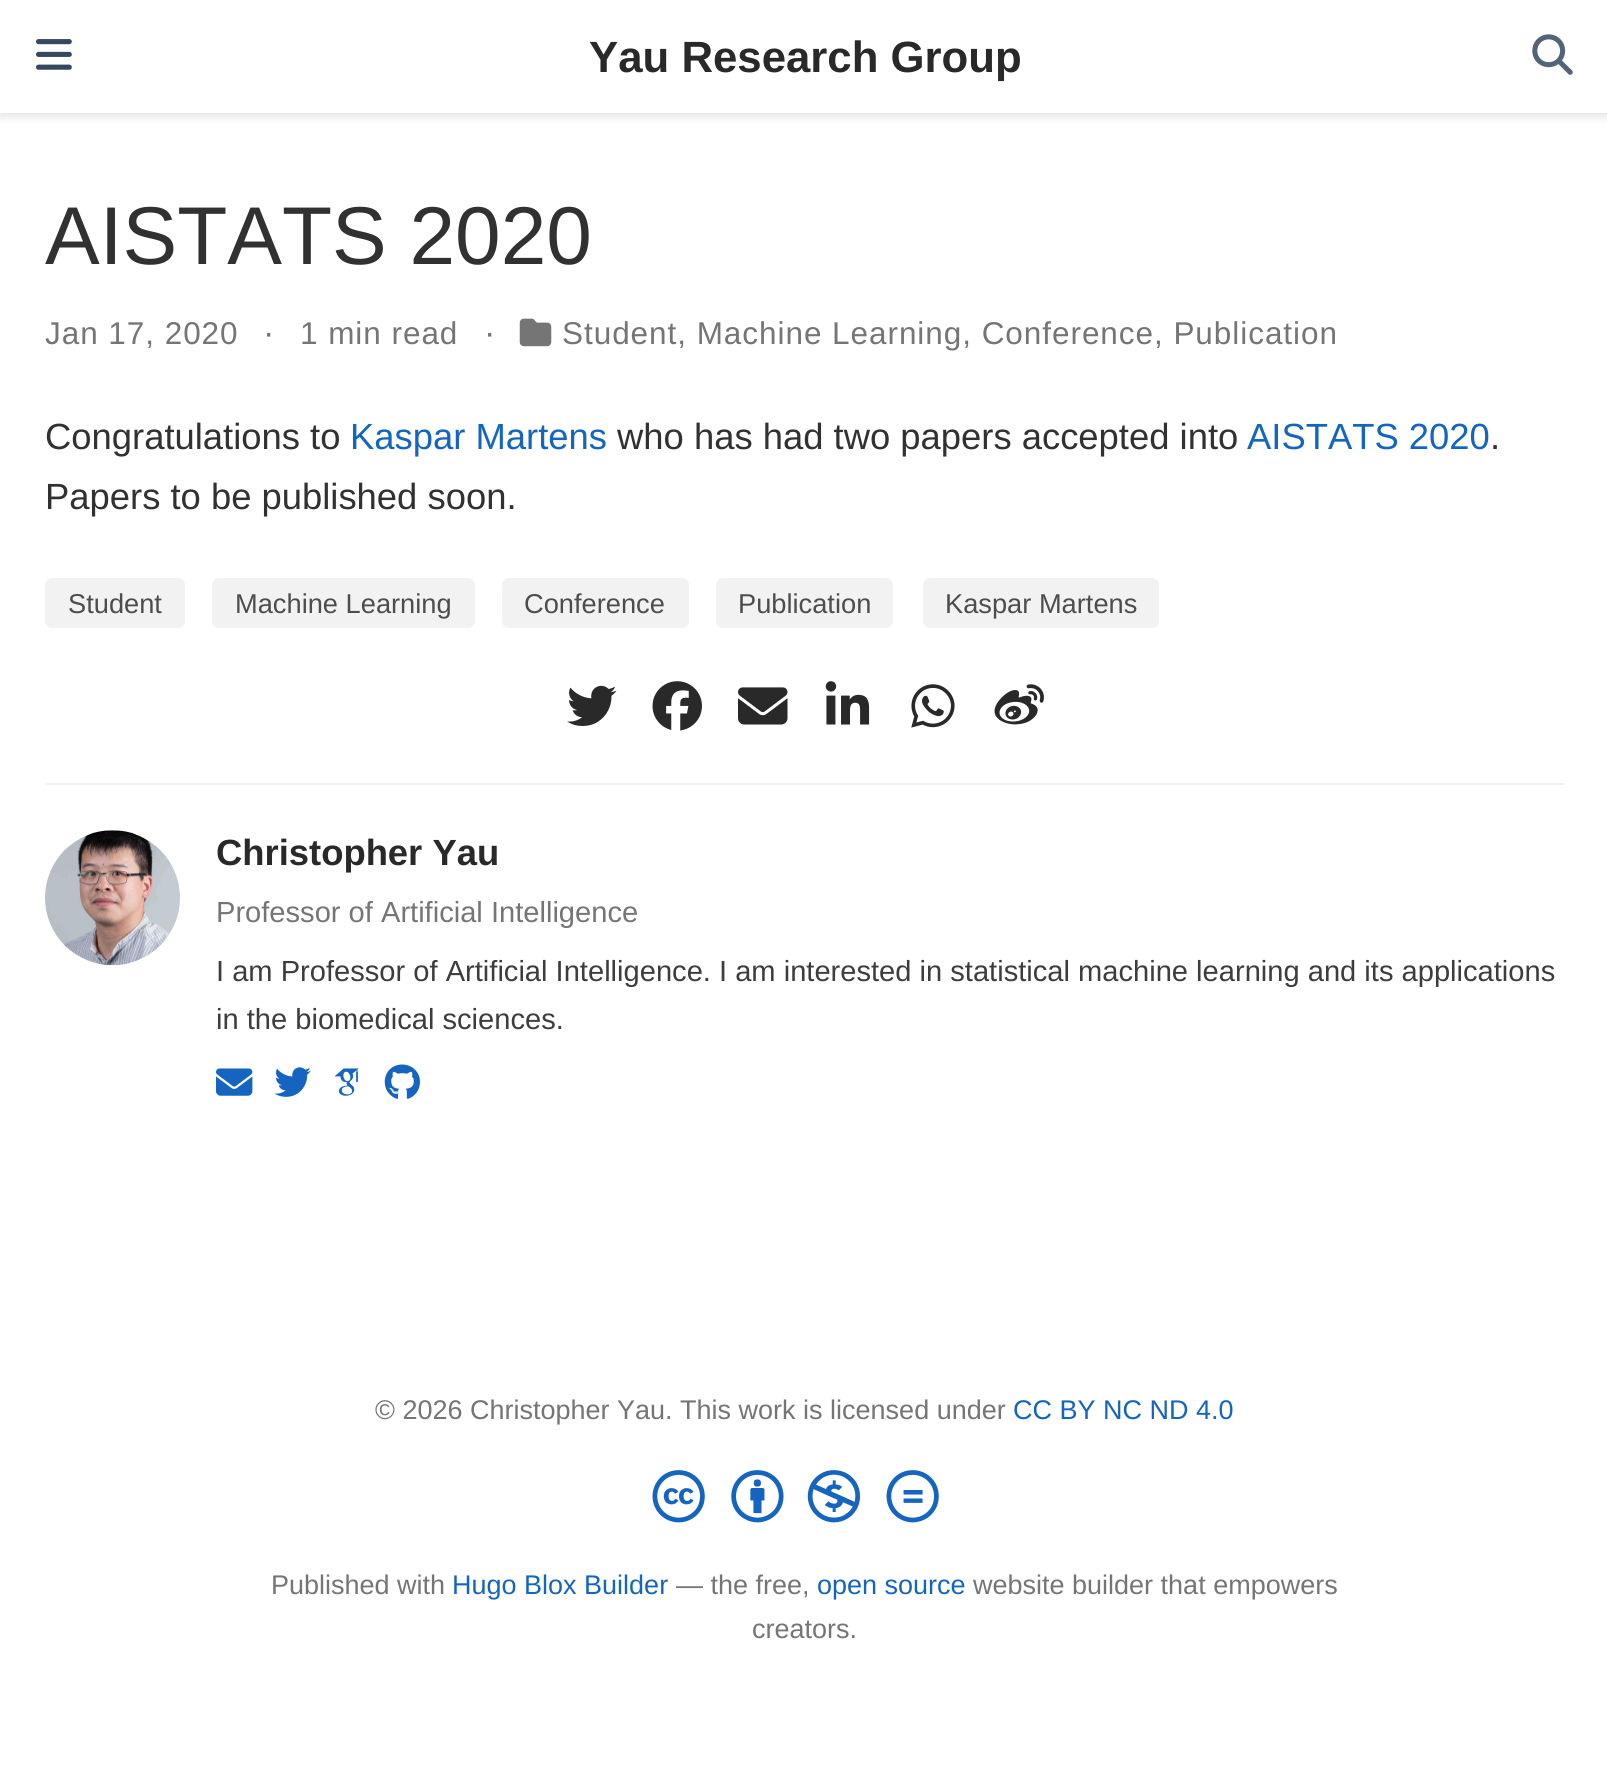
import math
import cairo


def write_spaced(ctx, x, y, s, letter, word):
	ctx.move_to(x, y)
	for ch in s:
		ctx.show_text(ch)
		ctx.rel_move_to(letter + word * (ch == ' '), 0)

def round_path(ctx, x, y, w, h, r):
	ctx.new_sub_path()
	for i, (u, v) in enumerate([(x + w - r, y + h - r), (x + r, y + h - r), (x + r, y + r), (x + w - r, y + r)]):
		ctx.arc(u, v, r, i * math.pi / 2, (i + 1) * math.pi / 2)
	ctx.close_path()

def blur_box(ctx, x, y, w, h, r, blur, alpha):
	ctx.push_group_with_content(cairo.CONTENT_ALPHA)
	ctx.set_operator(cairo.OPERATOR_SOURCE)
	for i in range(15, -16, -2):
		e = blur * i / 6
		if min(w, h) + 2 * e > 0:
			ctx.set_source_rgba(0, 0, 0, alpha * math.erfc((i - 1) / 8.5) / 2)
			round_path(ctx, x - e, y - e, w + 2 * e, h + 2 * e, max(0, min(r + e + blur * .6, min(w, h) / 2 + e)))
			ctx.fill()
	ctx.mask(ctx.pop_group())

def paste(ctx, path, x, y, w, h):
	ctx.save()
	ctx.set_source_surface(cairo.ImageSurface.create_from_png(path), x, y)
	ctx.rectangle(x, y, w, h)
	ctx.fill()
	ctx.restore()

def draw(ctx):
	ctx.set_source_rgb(1, 1, 1)
	ctx.paint()
	ctx.set_source_rgb(0, 0, 0)
	blur_box(ctx, 0, 5, 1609, 112, 0, 4.5, 0.11)
	ctx.set_source_rgb(1, 1, 1)
	ctx.rectangle(0, 0, 1607, 113)
	ctx.fill()
	paste(ctx, 'media/1.png', 36, 39, 36, 31)
	ctx.select_font_face('Liberation Sans', cairo.FONT_SLANT_NORMAL, cairo.FONT_WEIGHT_BOLD)
	ctx.set_font_size(43.75)
	ctx.set_source_rgb(0.161, 0.161, 0.161)
	ctx.move_to(589, 72)
	ctx.show_text('Yau Research Group')
	paste(ctx, 'media/2.png', 1532, 34, 41, 41)
	ctx.select_font_face('Liberation Sans')
	ctx.set_font_size(82)
	ctx.set_source_rgb(0.192, 0.192, 0.192)
	ctx.move_to(45, 264)
	ctx.show_text('AISTATS 2020')
	ctx.set_font_size(31.5)
	ctx.set_source_rgb(0.459, 0.459, 0.459)
	write_spaced(ctx, 45, 344, 'Jan 17, 2020', 0.95, 0)
	ctx.set_font_size(34)
	write_spaced(ctx, 263, 344, '·', 0.95, 0)
	ctx.set_font_size(31.5)
	write_spaced(ctx, 300, 344, '1 min read', 0.95, 0)
	ctx.set_font_size(34)
	write_spaced(ctx, 484, 344, '·', 0.95, 0)
	paste(ctx, 'media/3.png', 519, 318, 33, 29)
	ctx.set_font_size(31.5)
	write_spaced(ctx, 562, 344, 'Student, Machine Learning, Conference, Publication', 0.95, 0)
	ctx.set_font_size(36.4)
	ctx.set_source_rgb(0.192, 0.192, 0.192)
	ctx.move_to(45, 449)
	ctx.show_text('Congratulations to')
	ctx.set_source_rgb(0.082, 0.396, 0.753)
	ctx.move_to(350, 449)
	ctx.show_text('Kaspar Martens')
	ctx.set_source_rgb(0.192, 0.192, 0.192)
	ctx.move_to(617, 449)
	ctx.show_text('who has had two papers accepted into')
	ctx.set_source_rgb(0.082, 0.396, 0.753)
	ctx.move_to(1247, 449)
	ctx.show_text('AISTATS 2020')
	ctx.set_source_rgb(0.192, 0.192, 0.192)
	ctx.move_to(1490, 449)
	ctx.show_text('.')
	ctx.move_to(45, 509)
	ctx.show_text('Papers to be published soon.')
	ctx.set_source_rgb(0.949, 0.949, 0.949)
	round_path(ctx, 45, 578, 140, 50, 7)
	ctx.fill()
	ctx.set_font_size(27.25)
	ctx.set_source_rgb(0.302, 0.302, 0.302)
	ctx.move_to(68, 613)
	ctx.show_text('Student')
	ctx.set_source_rgb(0.949, 0.949, 0.949)
	round_path(ctx, 212, 578, 263, 50, 7)
	ctx.fill()
	ctx.set_source_rgb(0.302, 0.302, 0.302)
	ctx.move_to(235, 613)
	ctx.show_text('Machine Learning')
	ctx.set_source_rgb(0.949, 0.949, 0.949)
	round_path(ctx, 502, 578, 187, 50, 7)
	ctx.fill()
	ctx.set_source_rgb(0.302, 0.302, 0.302)
	ctx.move_to(524, 613)
	ctx.show_text('Conference')
	ctx.set_source_rgb(0.949, 0.949, 0.949)
	round_path(ctx, 716, 578, 177, 50, 7)
	ctx.fill()
	ctx.set_source_rgb(0.302, 0.302, 0.302)
	ctx.move_to(738, 613)
	ctx.show_text('Publication')
	ctx.set_source_rgb(0.949, 0.949, 0.949)
	round_path(ctx, 923, 578, 236, 50, 7)
	ctx.fill()
	ctx.set_source_rgb(0.302, 0.302, 0.302)
	ctx.move_to(945, 613)
	ctx.show_text('Kaspar Martens')
	paste(ctx, 'media/4.png', 567, 685, 50, 41)
	paste(ctx, 'media/5.png', 652, 681, 50, 50)
	paste(ctx, 'media/6.png', 738, 687, 50, 38)
	paste(ctx, 'media/7.png', 825, 681, 45, 44)
	paste(ctx, 'media/8.png', 911, 684, 44, 44)
	paste(ctx, 'media/9.png', 994, 684, 50, 41)
	ctx.set_source_rgb(0.949, 0.949, 0.949)
	ctx.rectangle(45, 783, 1519, 2)
	ctx.fill()
	paste(ctx, 'media/10.png', 45, 830, 135, 136)
	ctx.select_font_face('Liberation Sans', cairo.FONT_SLANT_NORMAL, cairo.FONT_WEIGHT_BOLD)
	ctx.set_font_size(36.4)
	ctx.set_source_rgb(0.161, 0.161, 0.161)
	ctx.move_to(216, 865)
	ctx.show_text('Christopher Yau')
	ctx.select_font_face('Liberation Sans')
	ctx.set_font_size(29.1)
	ctx.set_source_rgb(0.459, 0.459, 0.459)
	ctx.move_to(216, 922)
	ctx.show_text('Professor of Artificial Intelligence')
	ctx.set_source_rgb(0.239, 0.239, 0.239)
	ctx.move_to(216, 981)
	ctx.show_text('I am Professor of Artificial Intelligence. I am interested in statistical machine learning and its applications')
	ctx.move_to(216, 1029)
	ctx.show_text('in the biomedical sciences.')
	paste(ctx, 'media/11.png', 216, 1068, 37, 28)
	paste(ctx, 'media/12.png', 274, 1067, 37, 30)
	paste(ctx, 'media/13.png', 334, 1068, 25, 28)
	paste(ctx, 'media/14.png', 384, 1064, 36, 35)
	ctx.set_font_size(27)
	ctx.set_source_rgb(0.459, 0.459, 0.459)
	ctx.move_to(375, 1419)
	ctx.show_text('© 2026 Christopher Yau. This work is licensed under')
	ctx.set_source_rgb(0.082, 0.396, 0.753)
	ctx.move_to(1013, 1419)
	ctx.show_text('CC BY NC ND 4.0')
	paste(ctx, 'media/15.png', 652, 1470, 53, 53)
	paste(ctx, 'media/16.png', 731, 1470, 53, 53)
	paste(ctx, 'media/17.png', 807, 1470, 54, 53)
	paste(ctx, 'media/18.png', 886, 1470, 53, 53)
	ctx.set_source_rgb(0.459, 0.459, 0.459)
	ctx.move_to(271, 1594)
	ctx.show_text('Published with')
	ctx.set_source_rgb(0.082, 0.396, 0.753)
	ctx.move_to(452, 1594)
	ctx.show_text('Hugo Blox Builder')
	ctx.set_source_rgb(0.459, 0.459, 0.459)
	ctx.move_to(676, 1594)
	ctx.show_text('— the free,')
	ctx.set_source_rgb(0.082, 0.396, 0.753)
	ctx.move_to(817, 1594)
	ctx.show_text('open source')
	ctx.set_source_rgb(0.459, 0.459, 0.459)
	ctx.move_to(973, 1594)
	ctx.show_text('website builder that empowers')
	ctx.move_to(752, 1638)
	ctx.show_text('creators.')


surface = cairo.ImageSurface(cairo.FORMAT_RGB24, 1607, 1766)
ctx = cairo.Context(surface)
options = cairo.FontOptions()
options.set_hint_metrics(cairo.HINT_METRICS_OFF)
options.set_hint_style(cairo.HINT_STYLE_NONE)
ctx.set_font_options(options)
ctx.set_miter_limit(4)
draw(ctx)
surface.write_to_png('image.png')
